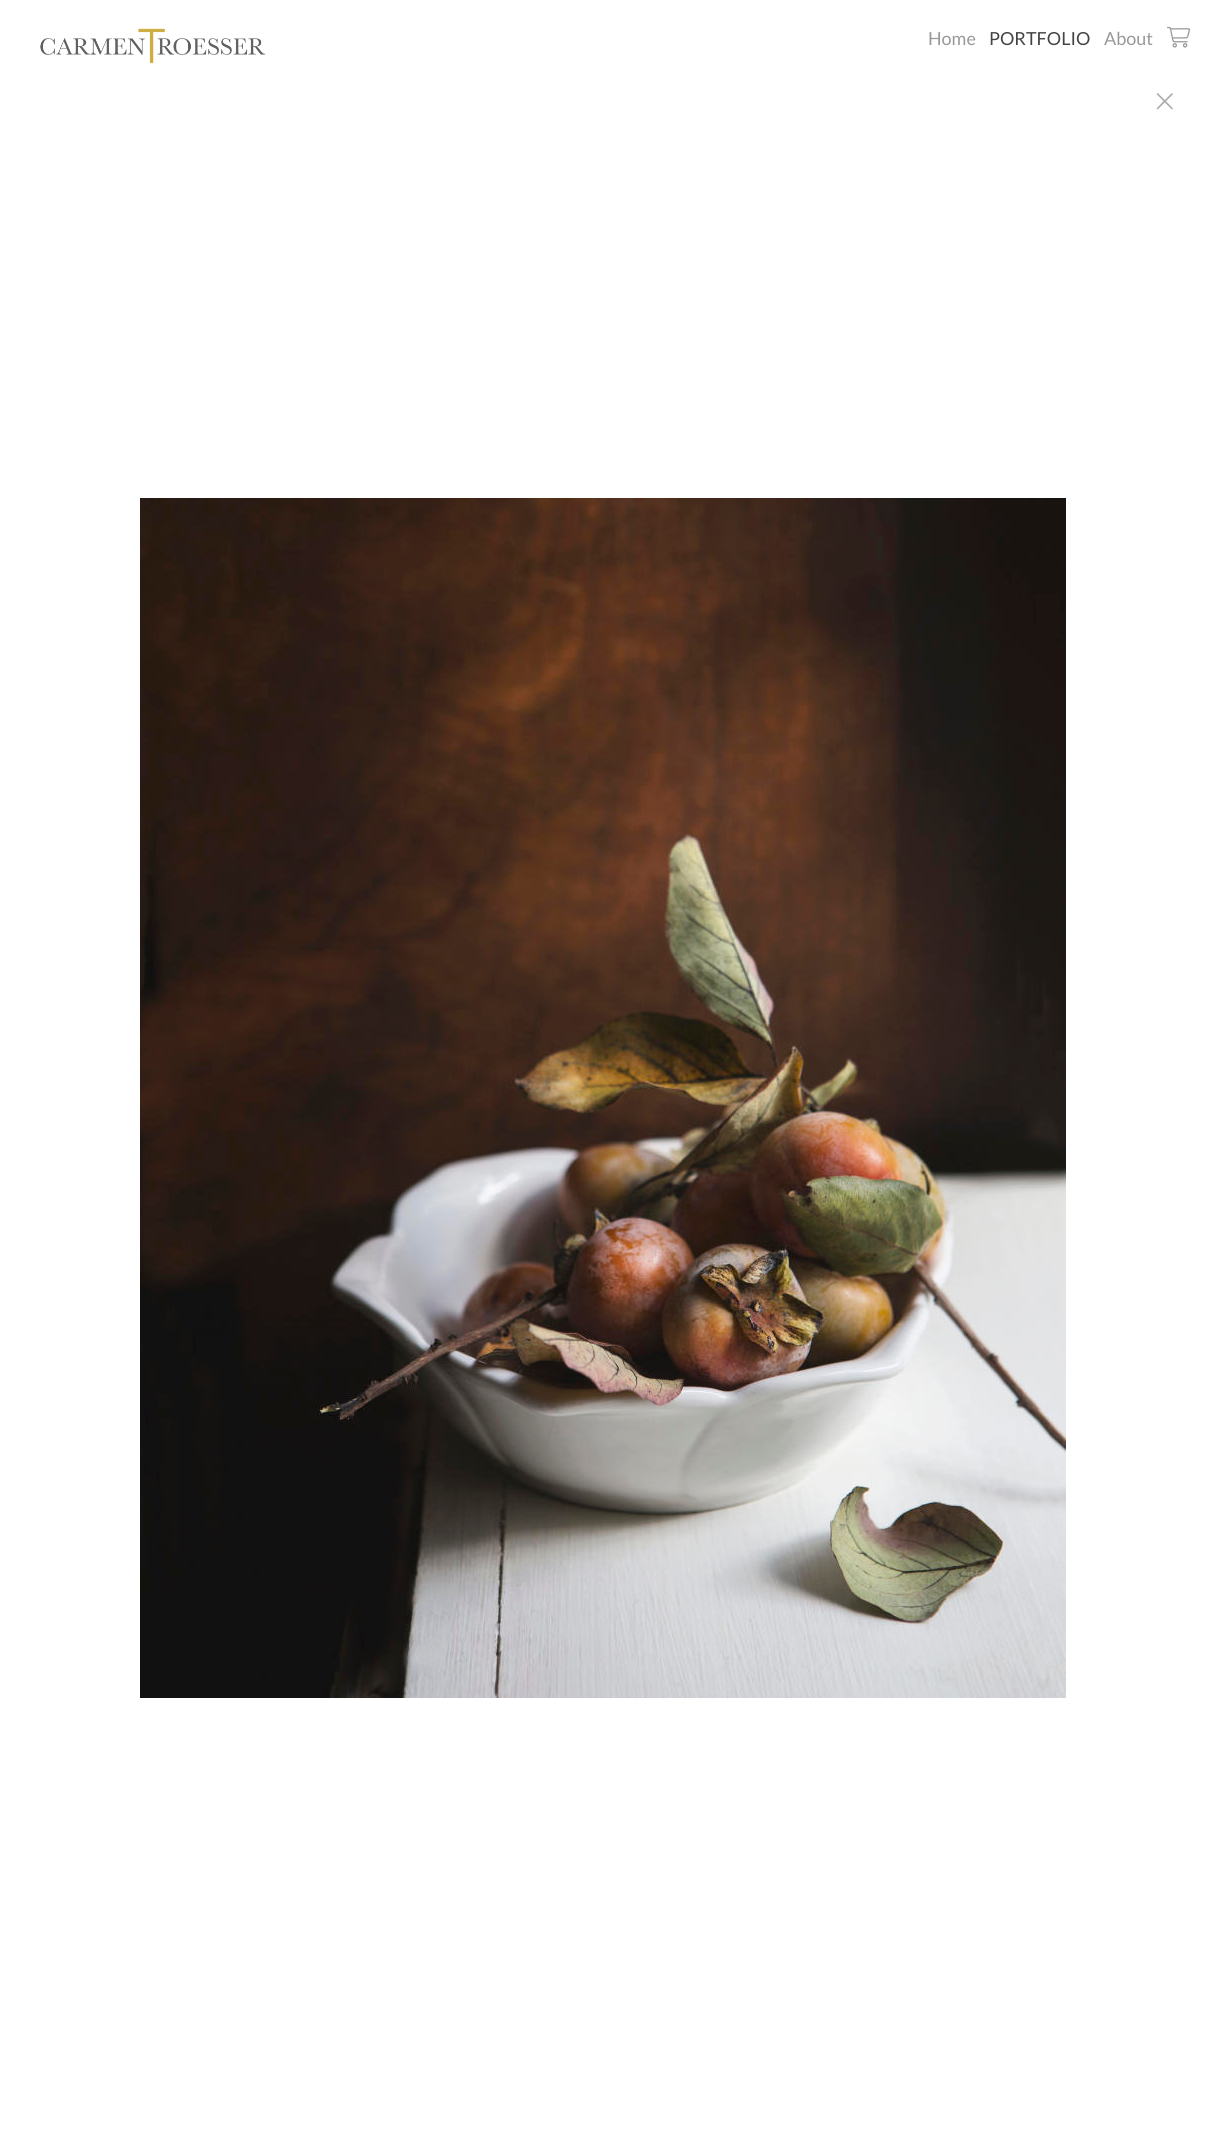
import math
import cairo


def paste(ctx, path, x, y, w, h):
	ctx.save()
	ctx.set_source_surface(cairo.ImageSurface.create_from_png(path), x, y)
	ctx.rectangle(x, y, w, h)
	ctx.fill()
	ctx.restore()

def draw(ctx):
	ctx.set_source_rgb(1, 1, 1)
	ctx.paint()
	paste(ctx, 'media/1.png', 40, 28, 226, 36)
	ctx.select_font_face('Lato')
	ctx.set_font_size(18)
	ctx.set_source_rgb(0.6, 0.6, 0.6)
	ctx.move_to(928, 45)
	ctx.show_text('Home')
	ctx.set_source_rgb(0.267, 0.267, 0.267)
	ctx.move_to(989, 45)
	ctx.show_text('PORTFOLIO')
	ctx.set_source_rgb(0.6, 0.6, 0.6)
	ctx.move_to(1104, 45)
	ctx.show_text('About')
	paste(ctx, 'media/2.png', 1167, 26, 24, 22)
	paste(ctx, 'media/3.png', 1156, 93, 17, 17)
	paste(ctx, 'media/4.png', 140, 498, 926, 1200)


surface = cairo.ImageSurface(cairo.FORMAT_RGB24, 1205, 2156)
ctx = cairo.Context(surface)
options = cairo.FontOptions()
options.set_hint_metrics(cairo.HINT_METRICS_OFF)
options.set_hint_style(cairo.HINT_STYLE_NONE)
ctx.set_font_options(options)
ctx.set_miter_limit(4)
draw(ctx)
surface.write_to_png('image.png')
